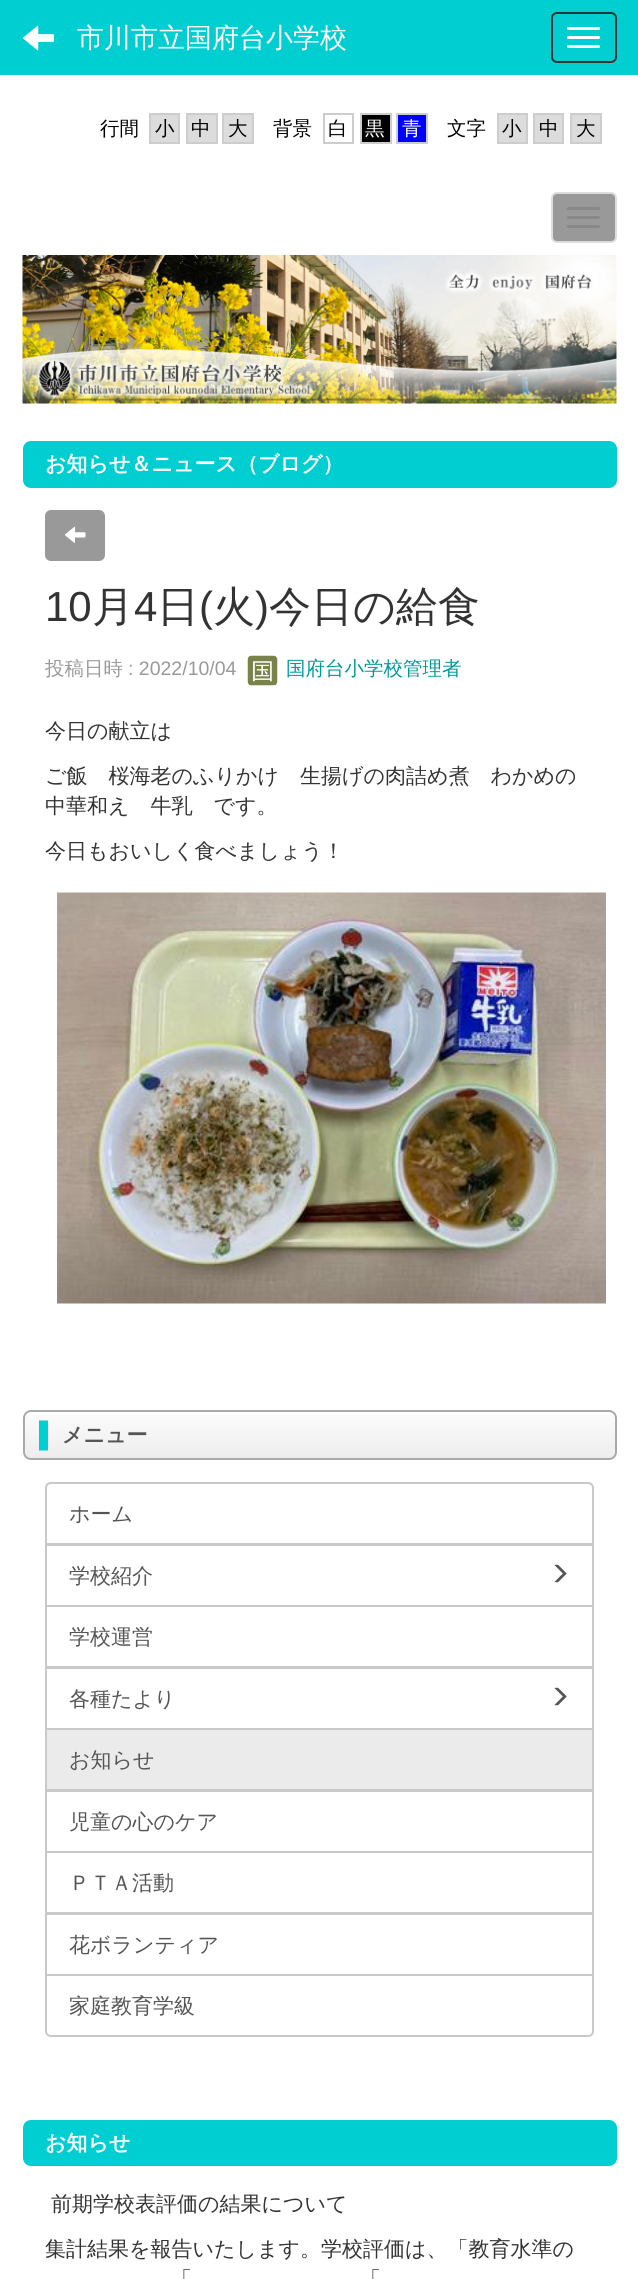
import math
import cairo


def round_path(ctx, x, y, w, h, r):
	ctx.new_sub_path()
	for i, (u, v) in enumerate([(x + w - r, y + h - r), (x + r, y + h - r), (x + r, y + r), (x + w - r, y + r)]):
		ctx.arc(u, v, r, i * math.pi / 2, (i + 1) * math.pi / 2)
	ctx.close_path()

def paste(ctx, path, x, y, w, h):
	ctx.save()
	ctx.set_source_surface(cairo.ImageSurface.create_from_png(path), x, y)
	ctx.rectangle(x, y, w, h)
	ctx.fill()
	ctx.restore()

def draw(ctx):
	ctx.set_source_rgb(1, 1, 1)
	ctx.paint()
	ctx.set_source_rgb(0, 0.808, 0.82)
	ctx.rectangle(0, 0, 638, 75)
	ctx.fill()
	paste(ctx, 'media/1.png', 23, 25, 31, 26)
	ctx.select_font_face('WenQuanYi Zen Hei Medium')
	ctx.set_font_size(27)
	ctx.set_source_rgb(1, 1, 1)
	ctx.move_to(77, 47)
	ctx.show_text('市川市立国府台小学校')
	round_path(ctx, 552, 13, 64, 49, 5)
	ctx.set_source_rgb(0.2, 0.2, 0.2)
	ctx.stroke()
	ctx.set_source_rgb(1, 1, 1)
	round_path(ctx, 567, 27, 33, 3, 1.5)
	ctx.fill()
	round_path(ctx, 567, 36, 33, 3, 1.5)
	ctx.fill()
	round_path(ctx, 567, 45, 33, 3, 1.5)
	ctx.fill()
	ctx.set_font_size(19.5)
	ctx.set_source_rgb(0, 0, 0)
	ctx.move_to(100, 135)
	ctx.show_text('行間')
	ctx.set_source_rgb(0.863, 0.863, 0.863)
	ctx.rectangle(150, 114, 29, 29)
	ctx.fill_preserve()
	ctx.set_source_rgb(0.804, 0.804, 0.804)
	ctx.stroke()
	ctx.set_source_rgb(0, 0, 0)
	ctx.move_to(155, 135)
	ctx.show_text('小')
	ctx.set_source_rgb(0.863, 0.863, 0.863)
	ctx.rectangle(187, 114, 30, 29)
	ctx.fill_preserve()
	ctx.set_source_rgb(0.804, 0.804, 0.804)
	ctx.stroke()
	ctx.set_source_rgb(0, 0, 0)
	ctx.move_to(191, 135)
	ctx.show_text('中')
	ctx.set_source_rgb(0.863, 0.863, 0.863)
	ctx.rectangle(223, 114, 30, 29)
	ctx.fill_preserve()
	ctx.set_source_rgb(0.804, 0.804, 0.804)
	ctx.stroke()
	ctx.set_source_rgb(0, 0, 0)
	ctx.move_to(228, 135)
	ctx.show_text('大')
	ctx.move_to(273, 135)
	ctx.show_text('背景')
	ctx.rectangle(324, 114, 29, 29)
	ctx.set_source_rgb(0.804, 0.804, 0.804)
	ctx.stroke()
	ctx.set_source_rgb(0, 0, 0)
	ctx.move_to(328, 135)
	ctx.show_text('白')
	ctx.rectangle(361, 114, 30, 29)
	ctx.fill_preserve()
	ctx.set_source_rgb(0.804, 0.804, 0.804)
	ctx.stroke()
	ctx.set_source_rgb(1, 1, 1)
	ctx.move_to(365, 135)
	ctx.show_text('黒')
	ctx.set_source_rgb(0, 0, 1)
	ctx.rectangle(397, 114, 30, 29)
	ctx.fill_preserve()
	ctx.set_source_rgb(0.804, 0.804, 0.804)
	ctx.stroke()
	ctx.set_source_rgb(1, 1, 1)
	ctx.move_to(402, 135)
	ctx.show_text('青')
	ctx.set_source_rgb(0, 0, 0)
	ctx.move_to(447, 135)
	ctx.show_text('文字')
	ctx.set_source_rgb(0.863, 0.863, 0.863)
	ctx.rectangle(498, 114, 29, 29)
	ctx.fill_preserve()
	ctx.set_source_rgb(0.804, 0.804, 0.804)
	ctx.stroke()
	ctx.set_source_rgb(0, 0, 0)
	ctx.move_to(502, 135)
	ctx.show_text('小')
	ctx.set_source_rgb(0.863, 0.863, 0.863)
	ctx.rectangle(534, 114, 29, 29)
	ctx.fill_preserve()
	ctx.set_source_rgb(0.804, 0.804, 0.804)
	ctx.stroke()
	ctx.set_source_rgb(0, 0, 0)
	ctx.move_to(539, 135)
	ctx.show_text('中')
	ctx.set_source_rgb(0.863, 0.863, 0.863)
	ctx.rectangle(571, 114, 30, 29)
	ctx.fill_preserve()
	ctx.set_source_rgb(0.804, 0.804, 0.804)
	ctx.stroke()
	ctx.set_source_rgb(0, 0, 0)
	ctx.move_to(576, 135)
	ctx.show_text('大')
	ctx.set_source_rgb(0.6, 0.6, 0.6)
	round_path(ctx, 552, 193, 64, 49, 5)
	ctx.fill_preserve()
	ctx.set_source_rgb(0.867, 0.867, 0.867)
	ctx.stroke()
	ctx.set_source_rgb(0.533, 0.533, 0.533)
	round_path(ctx, 567, 207, 33, 3, 1.5)
	ctx.fill()
	round_path(ctx, 567, 216, 33, 3, 1.5)
	ctx.fill()
	round_path(ctx, 567, 225, 33, 3, 1.5)
	ctx.fill()
	paste(ctx, 'media/2.png', 22, 255, 595, 149)
	ctx.set_source_rgb(0, 0.808, 0.82)
	round_path(ctx, 23, 441, 594, 47, 8)
	ctx.fill()
	ctx.select_font_face('WenQuanYi Zen Hei', cairo.FONT_SLANT_NORMAL, cairo.FONT_WEIGHT_BOLD)
	ctx.set_font_size(21)
	ctx.set_source_rgb(1, 1, 1)
	ctx.move_to(45, 471)
	ctx.show_text('お知らせ＆ニュース（ブログ）')
	ctx.set_source_rgb(0.6, 0.6, 0.6)
	round_path(ctx, 46, 511, 58, 49, 5)
	ctx.fill_preserve()
	ctx.stroke()
	paste(ctx, 'media/3.png', 65, 526, 21, 17)
	ctx.select_font_face('Liberation Sans')
	ctx.set_font_size(42)
	ctx.set_source_rgb(0.2, 0.2, 0.2)
	ctx.move_to(45, 621)
	ctx.show_text('10')
	ctx.select_font_face('WenQuanYi Zen Hei Medium')
	ctx.move_to(92, 621)
	ctx.show_text('月')
	ctx.select_font_face('Liberation Sans')
	ctx.move_to(134, 621)
	ctx.show_text('4')
	ctx.select_font_face('WenQuanYi Zen Hei Medium')
	ctx.move_to(157, 621)
	ctx.show_text('日')
	ctx.select_font_face('Liberation Sans')
	ctx.move_to(199, 621)
	ctx.show_text('(')
	ctx.select_font_face('WenQuanYi Zen Hei Medium')
	ctx.move_to(213, 621)
	ctx.show_text('火')
	ctx.select_font_face('Liberation Sans')
	ctx.move_to(255, 621)
	ctx.show_text(')')
	ctx.select_font_face('WenQuanYi Zen Hei Medium')
	ctx.move_to(269, 621)
	ctx.show_text('今日の給食')
	ctx.set_font_size(19.5)
	ctx.set_source_rgb(0.6, 0.6, 0.6)
	ctx.move_to(45, 675)
	ctx.show_text('投稿日時')
	ctx.select_font_face('Liberation Sans')
	ctx.move_to(128, 675)
	ctx.show_text(': 2022/10/04')
	paste(ctx, 'media/4.png', 247, 655, 31, 31)
	ctx.select_font_face('WenQuanYi Zen Hei Medium')
	ctx.set_source_rgb(0, 0.6, 0.6)
	ctx.move_to(286, 675)
	ctx.show_text('国府台小学校管理者')
	ctx.set_font_size(21)
	ctx.set_source_rgb(0.2, 0.2, 0.2)
	for x, y, s in [
		(45, 738, '今日の献立は'),
		(45, 783, 'ご飯　桜海老のふりかけ　生揚げの肉詰め煮　わかめの'),
		(45, 813, '中華和え　牛乳　です。'),
		(45, 858, '今日もおいしく食べましょう！'),
	]:
		ctx.move_to(x, y)
		ctx.show_text(s)
	paste(ctx, 'media/5.png', 57, 892, 549, 412)
	paste(ctx, 'media/6.png', 24, 1415, 591, 43)
	round_path(ctx, 24, 1411, 592, 48, 7)
	ctx.set_source_rgb(0.667, 0.667, 0.667)
	ctx.stroke()
	ctx.select_font_face('WenQuanYi Zen Hei', cairo.FONT_SLANT_NORMAL, cairo.FONT_WEIGHT_BOLD)
	ctx.set_source_rgb(0.333, 0.333, 0.333)
	ctx.move_to(62, 1442)
	ctx.show_text('メニュー')
	ctx.new_path()
	ctx.move_to(51, 1483)
	ctx.line_to(588, 1483)
	ctx.curve_to(591, 1483, 593, 1485, 593, 1488)
	ctx.line_to(593, 1544)
	ctx.line_to(46, 1544)
	ctx.line_to(46, 1488)
	ctx.curve_to(46, 1485, 48, 1483, 51, 1483)
	ctx.close_path()
	ctx.set_source_rgb(0.788, 0.788, 0.788)
	ctx.stroke()
	ctx.select_font_face('WenQuanYi Zen Hei Medium')
	ctx.set_source_rgb(0.333, 0.333, 0.333)
	ctx.move_to(69, 1521)
	ctx.show_text('ホーム')
	ctx.rectangle(46, 1545, 547, 61)
	ctx.set_source_rgb(0.788, 0.788, 0.788)
	ctx.stroke()
	ctx.set_source_rgb(0.333, 0.333, 0.333)
	ctx.move_to(69, 1583)
	ctx.show_text('学校紹介')
	paste(ctx, 'media/7.png', 554, 1564, 13, 19)
	ctx.rectangle(46, 1606, 547, 61)
	ctx.set_source_rgb(0.788, 0.788, 0.788)
	ctx.stroke()
	ctx.set_source_rgb(0.333, 0.333, 0.333)
	ctx.move_to(69, 1644)
	ctx.show_text('学校運営')
	ctx.rectangle(46, 1668, 547, 61)
	ctx.set_source_rgb(0.788, 0.788, 0.788)
	ctx.stroke()
	ctx.set_source_rgb(0.333, 0.333, 0.333)
	ctx.move_to(69, 1706)
	ctx.show_text('各種たより')
	paste(ctx, 'media/7.png', 554, 1687, 13, 19)
	ctx.rectangle(46, 1791, 547, 61)
	ctx.set_source_rgb(0.788, 0.788, 0.788)
	ctx.stroke()
	ctx.set_source_rgb(0.918, 0.918, 0.918)
	ctx.rectangle(46, 1729, 547, 61)
	ctx.fill_preserve()
	ctx.set_source_rgb(0.788, 0.788, 0.788)
	ctx.stroke()
	ctx.set_source_rgb(0.333, 0.333, 0.333)
	ctx.move_to(69, 1767)
	ctx.show_text('お知らせ')
	ctx.move_to(69, 1829)
	ctx.show_text('児童の心のケア')
	ctx.rectangle(46, 1852, 547, 61)
	ctx.set_source_rgb(0.788, 0.788, 0.788)
	ctx.stroke()
	ctx.set_source_rgb(0.333, 0.333, 0.333)
	ctx.move_to(69, 1890)
	ctx.show_text('ＰＴＡ活動')
	ctx.rectangle(46, 1914, 547, 61)
	ctx.set_source_rgb(0.788, 0.788, 0.788)
	ctx.stroke()
	ctx.set_source_rgb(0.333, 0.333, 0.333)
	ctx.move_to(69, 1952)
	ctx.show_text('花ボランティア')
	ctx.set_source_rgb(1, 1, 1)
	ctx.new_path()
	ctx.move_to(46, 1975)
	ctx.line_to(593, 1975)
	ctx.line_to(593, 2031)
	ctx.curve_to(593, 2034, 591, 2036, 588, 2036)
	ctx.line_to(51, 2036)
	ctx.curve_to(48, 2036, 46, 2034, 46, 2031)
	ctx.close_path()
	ctx.fill_preserve()
	ctx.set_source_rgb(0.788, 0.788, 0.788)
	ctx.stroke()
	ctx.set_source_rgb(0.333, 0.333, 0.333)
	ctx.move_to(69, 2013)
	ctx.show_text('家庭教育学級')
	ctx.set_source_rgb(0, 0.808, 0.82)
	round_path(ctx, 23, 2120, 594, 46, 8)
	ctx.fill()
	ctx.select_font_face('WenQuanYi Zen Hei', cairo.FONT_SLANT_NORMAL, cairo.FONT_WEIGHT_BOLD)
	ctx.set_source_rgb(1, 1, 1)
	ctx.move_to(45, 2150)
	ctx.show_text('お知らせ')
	ctx.select_font_face('WenQuanYi Zen Hei Medium')
	ctx.set_source_rgb(0.2, 0.2, 0.2)
	for x, y, s in [
		(51, 2211, '前期学校表評価の結果について'),
		(45, 2256, '集計結果を報告いたします。学校評価は、「教育水準の'),
		(171, 2286, '「'),
		(360, 2286, '「'),
	]:
		ctx.move_to(x, y)
		ctx.show_text(s)


surface = cairo.ImageSurface(cairo.FORMAT_RGB24, 638, 2279)
ctx = cairo.Context(surface)
options = cairo.FontOptions()
options.set_hint_metrics(cairo.HINT_METRICS_OFF)
options.set_hint_style(cairo.HINT_STYLE_NONE)
ctx.set_font_options(options)
ctx.set_miter_limit(4)
draw(ctx)
surface.write_to_png('image.png')
